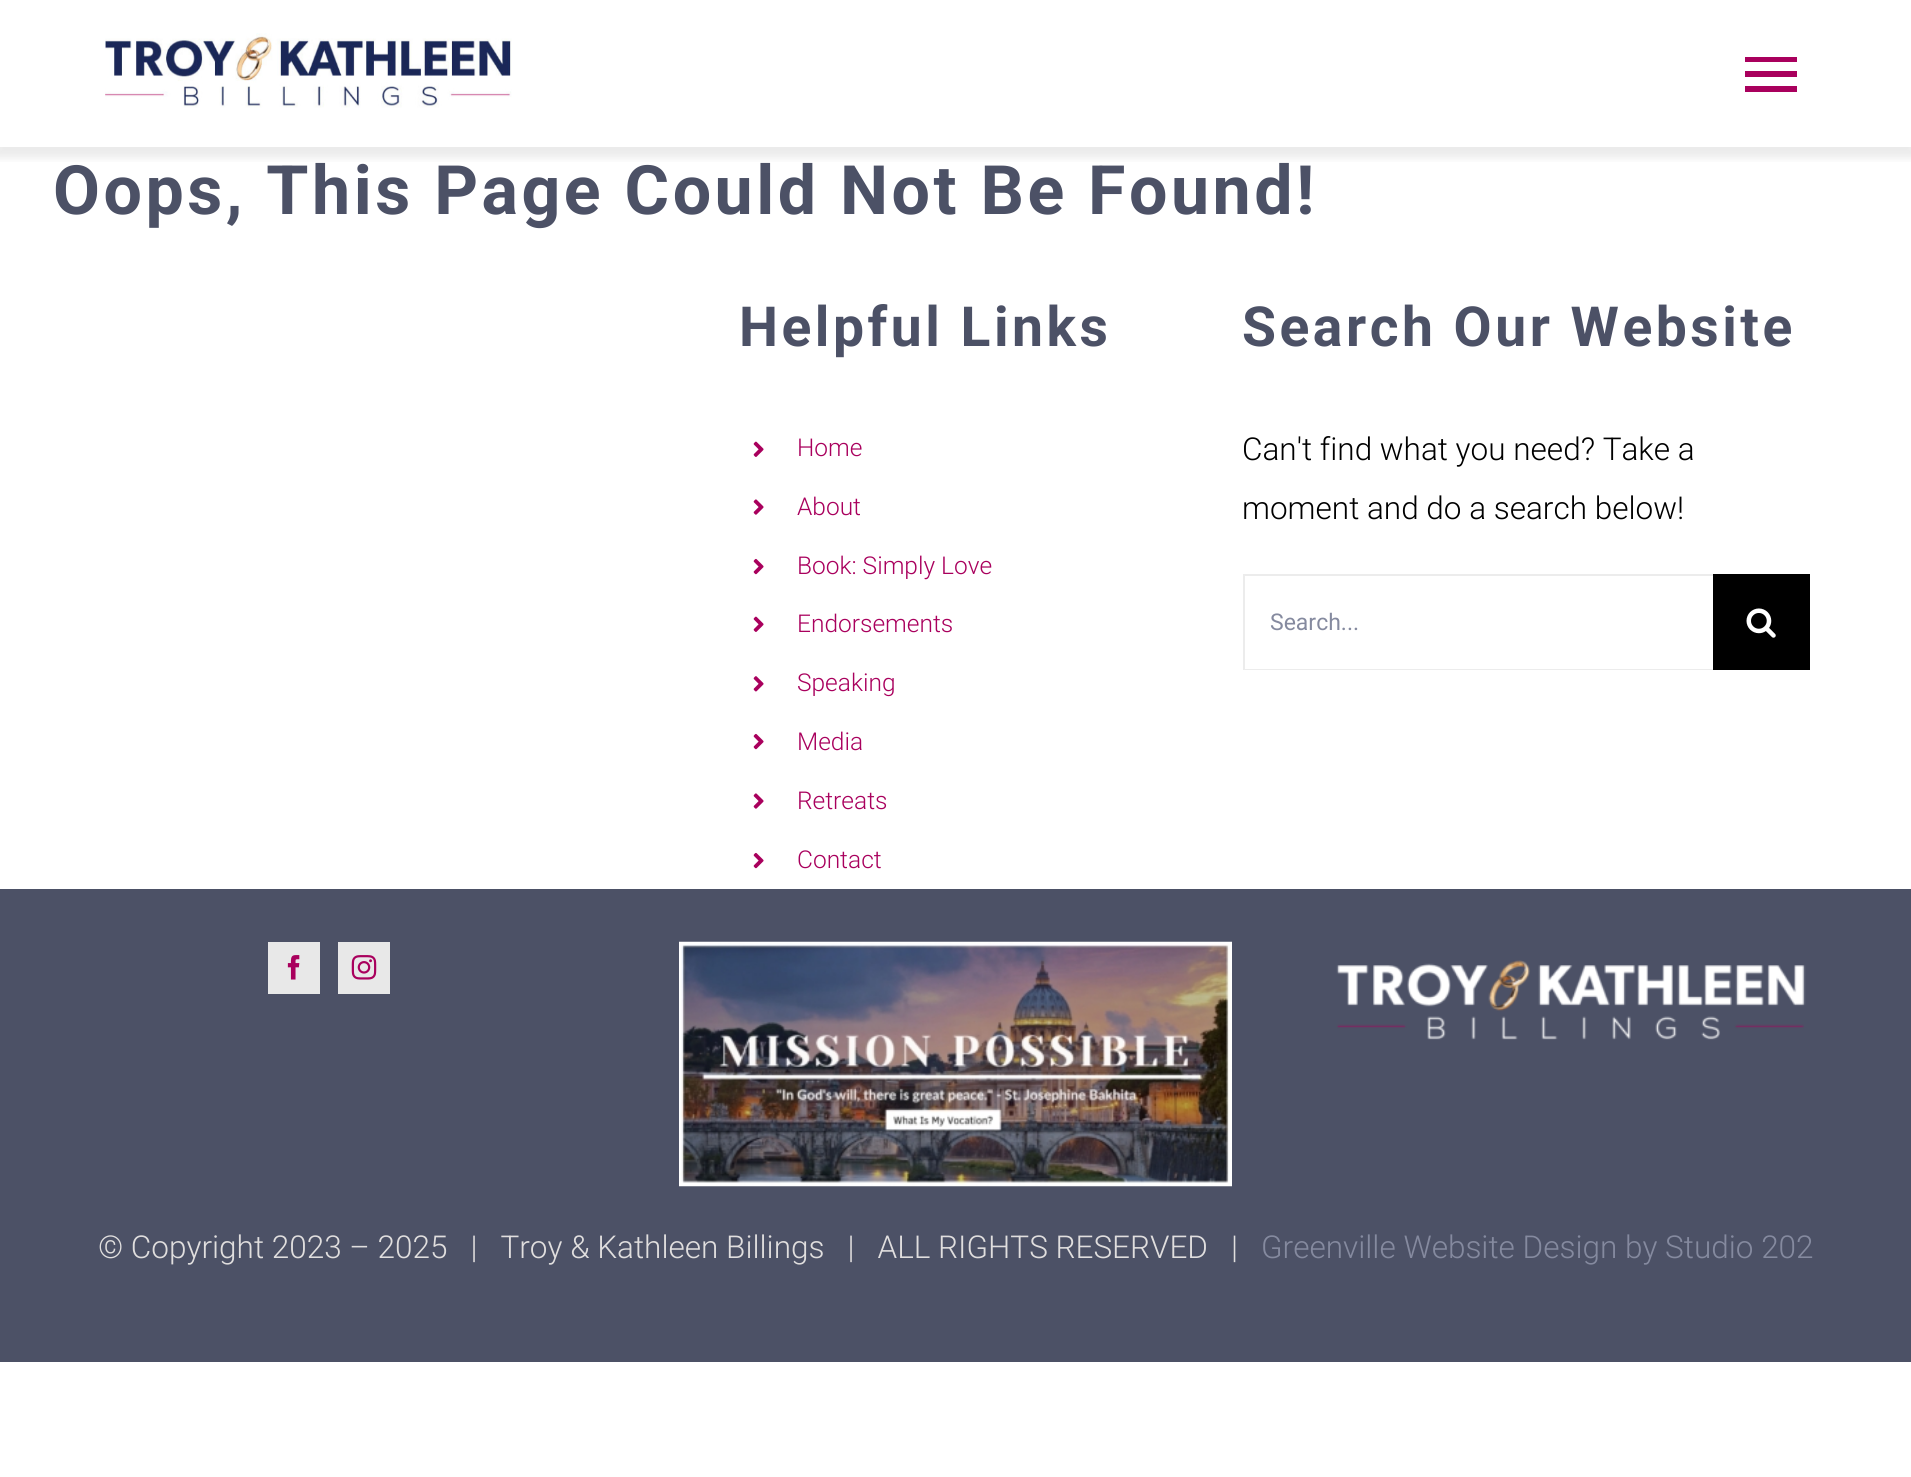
import math
import cairo


def write_spaced(ctx, x, y, s, letter, word):
	ctx.move_to(x, y)
	for ch in s:
		ctx.show_text(ch)
		ctx.rel_move_to(letter + word * (ch == ' '), 0)

def round_path(ctx, x, y, w, h, r):
	ctx.new_sub_path()
	for i, (u, v) in enumerate([(x + w - r, y + h - r), (x + r, y + h - r), (x + r, y + r), (x + w - r, y + r)]):
		ctx.arc(u, v, r, i * math.pi / 2, (i + 1) * math.pi / 2)
	ctx.close_path()

def blur_box(ctx, x, y, w, h, r, blur, alpha):
	ctx.push_group_with_content(cairo.CONTENT_ALPHA)
	ctx.set_operator(cairo.OPERATOR_SOURCE)
	for i in range(15, -16, -2):
		e = blur * i / 6
		if min(w, h) + 2 * e > 0:
			ctx.set_source_rgba(0, 0, 0, alpha * math.erfc((i - 1) / 8.5) / 2)
			round_path(ctx, x - e, y - e, w + 2 * e, h + 2 * e, max(0, min(r + e + blur * .6, min(w, h) / 2 + e)))
			ctx.fill()
	ctx.mask(ctx.pop_group())

def paste(ctx, path, x, y, w, h):
	ctx.save()
	ctx.set_source_surface(cairo.ImageSurface.create_from_png(path), x, y)
	ctx.rectangle(x, y, w, h)
	ctx.fill()
	ctx.restore()

def draw(ctx):
	ctx.set_source_rgb(1, 1, 1)
	ctx.paint()
	ctx.save()
	ctx.rectangle(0, 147, 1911, 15)
	ctx.clip()
	ctx.set_source_rgb(0.2, 0.2, 0.2)
	blur_box(ctx, -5, 0, 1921, 158, 0, 4.5, 0.1)
	ctx.restore()
	paste(ctx, 'media/1.png', 105, 33, 407, 75)
	ctx.set_source_rgb(0.663, 0, 0.365)
	ctx.new_path()
	ctx.move_to(1745, 57)
	ctx.line_to(1797, 57)
	ctx.line_to(1797, 62)
	ctx.line_to(1745, 62)
	ctx.close_path()
	ctx.move_to(1745, 77)
	ctx.line_to(1745, 71)
	ctx.line_to(1797, 71)
	ctx.line_to(1797, 77)
	ctx.close_path()
	ctx.move_to(1745, 92)
	ctx.line_to(1745, 86)
	ctx.line_to(1797, 86)
	ctx.line_to(1797, 92)
	ctx.close_path()
	ctx.fill()
	ctx.select_font_face('Roboto', cairo.FONT_SLANT_NORMAL, cairo.FONT_WEIGHT_BOLD)
	ctx.set_font_size(68.1)
	ctx.set_source_rgb(0.298, 0.318, 0.4)
	write_spaced(ctx, 53, 214, 'Oops, This Page Could Not Be Found!', 3.5, 0)
	ctx.set_font_size(55.25)
	write_spaced(ctx, 739, 346, 'Helpful Links', 3.5, 0)
	paste(ctx, 'media/2.png', 753, 441, 11, 16)
	ctx.select_font_face('Roboto Light')
	ctx.set_font_size(24.5)
	ctx.set_source_rgb(0.663, 0, 0.365)
	ctx.move_to(797, 456)
	ctx.show_text('Home')
	paste(ctx, 'media/3.png', 753, 499, 11, 16)
	ctx.move_to(797, 515)
	ctx.show_text('About')
	paste(ctx, 'media/4.png', 753, 558, 11, 17)
	ctx.move_to(797, 574)
	ctx.show_text('Book: Simply Love')
	paste(ctx, 'media/2.png', 753, 616, 11, 16)
	ctx.move_to(797, 632)
	ctx.show_text('Endorsements')
	paste(ctx, 'media/5.png', 753, 676, 11, 16)
	ctx.move_to(797, 691)
	ctx.show_text('Speaking')
	paste(ctx, 'media/4.png', 753, 733, 11, 17)
	ctx.move_to(797, 750)
	ctx.show_text('Media')
	paste(ctx, 'media/3.png', 753, 793, 11, 16)
	ctx.move_to(797, 809)
	ctx.show_text('Retreats')
	paste(ctx, 'media/4.png', 753, 852, 11, 17)
	ctx.move_to(797, 868)
	ctx.show_text('Contact')
	ctx.select_font_face('Roboto', cairo.FONT_SLANT_NORMAL, cairo.FONT_WEIGHT_BOLD)
	ctx.set_font_size(55.25)
	ctx.set_source_rgb(0.298, 0.318, 0.4)
	write_spaced(ctx, 1242, 346, 'Search Our Website', 3.5, 0)
	ctx.select_font_face('Roboto Light')
	ctx.set_font_size(31.5)
	ctx.set_source_rgb(0, 0, 0)
	ctx.move_to(1242, 460)
	ctx.show_text('Can\'t find what you need? Take a')
	ctx.move_to(1242, 519)
	ctx.show_text('moment and do a search below!')
	ctx.set_source_rgb(0.922, 0.922, 0.922)
	ctx.rectangle(1243, 574, 470, 2)
	ctx.rectangle(1243, 669, 470, 1)
	ctx.rectangle(1243, 574, 2, 96)
	ctx.fill()
	ctx.select_font_face('Roboto')
	ctx.set_font_size(23)
	ctx.set_source_rgb(0.522, 0.541, 0.624)
	ctx.move_to(1270, 630)
	ctx.show_text('Search...')
	ctx.set_source_rgb(0, 0, 0)
	ctx.rectangle(1713, 574, 97, 96)
	ctx.fill()
	paste(ctx, 'media/6.png', 1746, 608, 30, 30)
	ctx.set_source_rgb(0.298, 0.318, 0.4)
	ctx.rectangle(0, 889, 1911, 473)
	ctx.fill()
	ctx.set_source_rgb(0.91, 0.91, 0.91)
	ctx.rectangle(268, 942, 52, 52)
	ctx.fill()
	paste(ctx, 'media/7.png', 287, 955, 13, 25)
	ctx.rectangle(338, 942, 52, 52)
	ctx.fill()
	paste(ctx, 'media/8.png', 351, 955, 26, 25)
	paste(ctx, 'media/9.png', 679, 941, 553, 246)
	paste(ctx, 'media/10.png', 1336, 960, 470, 80)
	ctx.select_font_face('Roboto Light')
	ctx.set_font_size(31.5)
	ctx.set_source_rgb(0.878, 0.871, 0.871)
	ctx.move_to(98, 1258)
	ctx.show_text('© Copyright 2023 – 2025   |   Troy & Kathleen Billings   |   ALL RIGHTS RESERVED   |')
	ctx.set_source_rgb(0.522, 0.541, 0.624)
	ctx.move_to(1261, 1258)
	ctx.show_text('Greenville Website Design by Studio 202')


surface = cairo.ImageSurface(cairo.FORMAT_RGB24, 1911, 1477)
ctx = cairo.Context(surface)
options = cairo.FontOptions()
options.set_hint_metrics(cairo.HINT_METRICS_OFF)
options.set_hint_style(cairo.HINT_STYLE_NONE)
ctx.set_font_options(options)
ctx.set_miter_limit(4)
draw(ctx)
surface.write_to_png('image.png')
